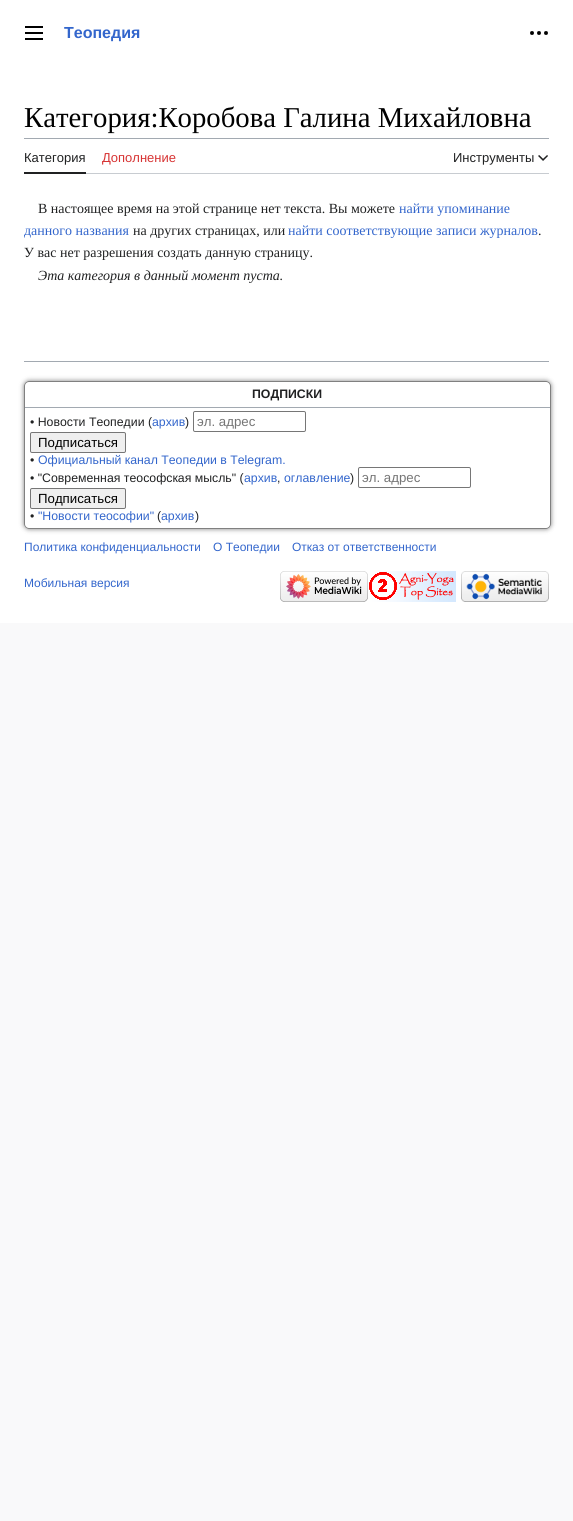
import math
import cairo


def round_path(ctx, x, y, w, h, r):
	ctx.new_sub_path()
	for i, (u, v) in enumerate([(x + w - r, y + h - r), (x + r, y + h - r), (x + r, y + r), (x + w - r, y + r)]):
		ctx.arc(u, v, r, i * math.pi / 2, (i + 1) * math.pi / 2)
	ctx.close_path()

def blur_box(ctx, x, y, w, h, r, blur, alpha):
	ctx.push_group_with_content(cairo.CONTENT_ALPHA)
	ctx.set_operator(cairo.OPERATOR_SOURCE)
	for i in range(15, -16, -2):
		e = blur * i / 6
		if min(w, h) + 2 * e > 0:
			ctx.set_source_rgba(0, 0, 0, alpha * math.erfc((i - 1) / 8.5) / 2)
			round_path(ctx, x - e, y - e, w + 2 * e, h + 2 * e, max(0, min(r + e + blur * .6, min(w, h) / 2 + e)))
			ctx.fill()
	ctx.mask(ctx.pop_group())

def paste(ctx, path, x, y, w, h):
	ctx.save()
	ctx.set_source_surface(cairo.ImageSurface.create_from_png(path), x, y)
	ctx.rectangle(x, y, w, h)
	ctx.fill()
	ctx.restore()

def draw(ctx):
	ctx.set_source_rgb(0.973, 0.976, 0.98)
	ctx.paint()
	ctx.set_source_rgb(1, 1, 1)
	ctx.rectangle(0, 0, 573, 623)
	ctx.fill()
	paste(ctx, 'media/1.png', 25, 26, 18, 14)
	ctx.select_font_face('Liberation Sans', cairo.FONT_SLANT_NORMAL, cairo.FONT_WEIGHT_BOLD)
	ctx.set_font_size(16)
	ctx.set_source_rgb(0.2, 0.4, 0.8)
	ctx.move_to(64, 38)
	ctx.show_text('Теопедия')
	paste(ctx, 'media/2.png', 530, 31, 18, 4)
	ctx.set_source_rgb(0.635, 0.663, 0.694)
	ctx.rectangle(24, 138, 525, 1)
	ctx.fill()
	ctx.select_font_face('Liberation Serif')
	ctx.set_font_size(28.75)
	ctx.set_source_rgb(0, 0, 0)
	ctx.move_to(24, 127)
	ctx.show_text('Категория:Коробова Галина Михайловна')
	ctx.set_source_rgb(0.784, 0.8, 0.82)
	ctx.rectangle(86, 173, 463, 1)
	ctx.fill()
	ctx.set_source_rgb(0.125, 0.129, 0.133)
	ctx.rectangle(24, 172, 62, 2)
	ctx.fill()
	ctx.select_font_face('Liberation Sans')
	ctx.set_font_size(13)
	ctx.move_to(24, 162)
	ctx.show_text('Категория')
	ctx.set_source_rgb(0.843, 0.2, 0.2)
	ctx.move_to(102, 162)
	ctx.show_text('Дополнение')
	ctx.set_source_rgb(0.125, 0.129, 0.133)
	ctx.move_to(453, 162)
	ctx.show_text('Инструменты')
	paste(ctx, 'media/3.png', 538, 155, 10, 6)
	ctx.select_font_face('Liberation Serif')
	ctx.set_font_size(14)
	ctx.move_to(38, 213)
	ctx.show_text('В настоящее время на этой странице нет текста. Вы можете')
	ctx.set_source_rgb(0.2, 0.4, 0.8)
	ctx.move_to(399, 213)
	ctx.show_text('найти упоминание')
	ctx.move_to(24, 235)
	ctx.show_text('данного названия')
	ctx.set_source_rgb(0.125, 0.129, 0.133)
	ctx.move_to(133, 235)
	ctx.show_text('на других страницах, или')
	ctx.set_source_rgb(0.2, 0.4, 0.8)
	ctx.move_to(288, 235)
	ctx.show_text('найти соответствующие записи журналов')
	ctx.set_source_rgb(0.125, 0.129, 0.133)
	ctx.move_to(538, 235)
	ctx.show_text('.')
	ctx.move_to(24, 257)
	ctx.show_text('У вас нет разрешения создать данную страницу.')
	ctx.select_font_face('Liberation Serif', cairo.FONT_SLANT_ITALIC)
	ctx.move_to(38, 280)
	ctx.show_text('Эта категория в данный момент пуста.')
	ctx.set_source_rgb(0.635, 0.663, 0.694)
	ctx.rectangle(24, 361, 525, 1)
	ctx.fill()
	ctx.save()
	ctx.set_fill_rule(cairo.FILL_RULE_EVEN_ODD)
	ctx.new_path()
	ctx.move_to(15, 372)
	ctx.line_to(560, 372)
	ctx.line_to(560, 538)
	ctx.line_to(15, 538)
	ctx.close_path()
	ctx.move_to(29, 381)
	ctx.line_to(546, 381)
	ctx.curve_to(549, 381, 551, 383, 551, 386)
	ctx.line_to(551, 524)
	ctx.curve_to(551, 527, 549, 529, 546, 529)
	ctx.line_to(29, 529)
	ctx.curve_to(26, 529, 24, 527, 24, 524)
	ctx.line_to(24, 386)
	ctx.curve_to(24, 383, 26, 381, 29, 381)
	ctx.close_path()
	ctx.clip()
	ctx.set_source_rgb(0, 0, 0)
	blur_box(ctx, 24, 381, 527, 148, 5, 2.5, 0.5)
	ctx.restore()
	round_path(ctx, 24.5, 381.5, 526, 147, 4.5)
	ctx.set_source_rgb(0.502, 0.502, 0.502)
	ctx.set_line_width(1)
	ctx.stroke()
	ctx.select_font_face('Liberation Sans', cairo.FONT_SLANT_NORMAL, cairo.FONT_WEIGHT_BOLD)
	ctx.set_font_size(12.3)
	ctx.set_source_rgb(0.125, 0.129, 0.133)
	ctx.move_to(252, 398)
	ctx.show_text('ПОДПИСКИ')
	ctx.set_source_rgb(0.635, 0.663, 0.694)
	ctx.rectangle(25, 407, 525, 1)
	ctx.fill()
	ctx.select_font_face('Liberation Sans')
	ctx.set_source_rgb(0.125, 0.129, 0.133)
	ctx.move_to(30, 426)
	ctx.show_text('• Новости Теопедии (')
	ctx.set_source_rgb(0.2, 0.4, 0.8)
	ctx.move_to(152, 426)
	ctx.show_text('архив')
	ctx.set_source_rgb(0.125, 0.129, 0.133)
	ctx.move_to(185, 426)
	ctx.show_text(')')
	round_path(ctx, 193.5, 411.5, 112, 20, 1.5)
	ctx.set_source_rgb(0.463, 0.463, 0.463)
	ctx.stroke()
	ctx.set_font_size(13.25)
	ctx.set_source_rgb(0.459, 0.459, 0.459)
	ctx.move_to(197, 426)
	ctx.show_text('эл. адрес')
	ctx.set_source_rgb(0.937, 0.937, 0.937)
	round_path(ctx, 30.5, 432.5, 95, 20, 1.5)
	ctx.fill_preserve()
	ctx.set_source_rgb(0.463, 0.463, 0.463)
	ctx.stroke()
	ctx.set_source_rgb(0, 0, 0)
	ctx.move_to(38, 447)
	ctx.show_text('Подписаться')
	ctx.set_font_size(12.3)
	ctx.set_source_rgb(0.125, 0.129, 0.133)
	ctx.move_to(30, 464)
	ctx.show_text('•')
	ctx.set_source_rgb(0.2, 0.4, 0.8)
	ctx.move_to(38, 464)
	ctx.show_text('Официальный канал Теопедии в Telegram.')
	ctx.set_source_rgb(0.125, 0.129, 0.133)
	ctx.move_to(30, 482)
	ctx.show_text('• "Современная теософская мысль" (')
	ctx.set_source_rgb(0.2, 0.4, 0.8)
	ctx.move_to(244, 482)
	ctx.show_text('архив')
	ctx.set_source_rgb(0.125, 0.129, 0.133)
	ctx.move_to(277, 482)
	ctx.show_text(',')
	ctx.set_source_rgb(0.2, 0.4, 0.8)
	ctx.move_to(284, 482)
	ctx.show_text('оглавление')
	ctx.set_source_rgb(0.125, 0.129, 0.133)
	ctx.move_to(350, 482)
	ctx.show_text(')')
	round_path(ctx, 358.5, 467.5, 112, 20, 1.5)
	ctx.set_source_rgb(0.463, 0.463, 0.463)
	ctx.stroke()
	ctx.set_font_size(13.25)
	ctx.set_source_rgb(0.459, 0.459, 0.459)
	ctx.move_to(362, 482)
	ctx.show_text('эл. адрес')
	ctx.set_source_rgb(0.937, 0.937, 0.937)
	round_path(ctx, 30.5, 488.5, 95, 20, 1.5)
	ctx.fill_preserve()
	ctx.set_source_rgb(0.463, 0.463, 0.463)
	ctx.stroke()
	ctx.set_source_rgb(0, 0, 0)
	ctx.move_to(38, 503)
	ctx.show_text('Подписаться')
	ctx.set_font_size(12.3)
	ctx.set_source_rgb(0.125, 0.129, 0.133)
	ctx.move_to(30, 520)
	ctx.show_text('•')
	ctx.set_source_rgb(0.2, 0.4, 0.8)
	ctx.move_to(38, 520)
	ctx.show_text('"Новости теософии"')
	ctx.set_source_rgb(0.125, 0.129, 0.133)
	ctx.move_to(157, 520)
	ctx.show_text('(')
	ctx.set_source_rgb(0.2, 0.4, 0.8)
	ctx.move_to(161, 520)
	ctx.show_text('архив')
	ctx.set_source_rgb(0.125, 0.129, 0.133)
	ctx.move_to(195, 520)
	ctx.show_text(')')
	ctx.set_font_size(12)
	ctx.set_source_rgb(0.2, 0.4, 0.8)
	for x, y, s in [
		(24, 551, 'Политика конфиденциальности'),
		(213, 551, 'О Теопедии'),
		(292, 551, 'Отказ от ответственности'),
		(24, 587, 'Мобильная версия'),
	]:
		ctx.move_to(x, y)
		ctx.show_text(s)
	paste(ctx, 'media/4.png', 280, 571, 88, 31)
	paste(ctx, 'media/5.png', 369, 571, 87, 31)
	paste(ctx, 'media/6.png', 461, 571, 88, 31)


surface = cairo.ImageSurface(cairo.FORMAT_RGB24, 573, 1521)
ctx = cairo.Context(surface)
options = cairo.FontOptions()
options.set_hint_metrics(cairo.HINT_METRICS_OFF)
options.set_hint_style(cairo.HINT_STYLE_NONE)
ctx.set_font_options(options)
ctx.set_miter_limit(4)
draw(ctx)
surface.write_to_png('image.png')
